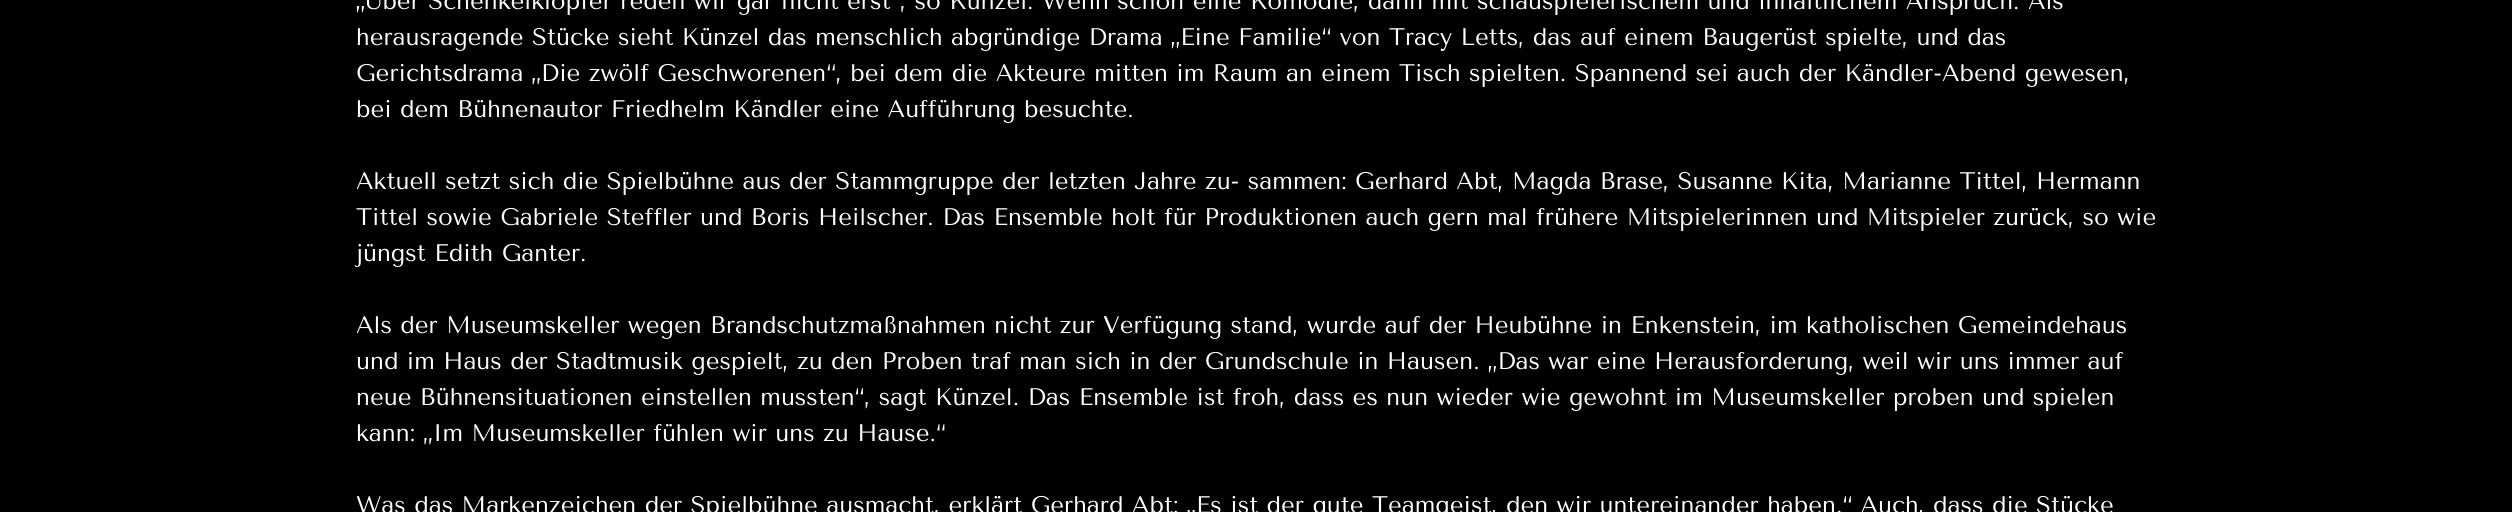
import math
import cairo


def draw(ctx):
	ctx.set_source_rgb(0, 0, 0)
	ctx.paint()
	ctx.select_font_face('Tenor Sans')
	ctx.set_font_size(24)
	ctx.set_source_rgb(1, 1, 1)
	for x, y, s in [
		(356, 9, '„Über Schenkelklopfer reden wir gar nicht erst“, so Künzel. Wenn schon eine Komödie, dann mit schauspielerischem und inhaltlichem Anspruch. Als'),
		(356, 45, 'herausragende Stücke sieht Künzel das menschlich abgründige Drama „Eine Familie“ von Tracy Letts, das auf einem Baugerüst spielte, und das'),
		(356, 81, 'Gerichtsdrama „Die zwölf Geschworenen“, bei dem die Akteure mitten im Raum an einem Tisch spielten. Spannend sei auch der Kändler-Abend gewesen,'),
		(356, 117, 'bei dem Bühnenautor Friedhelm Kändler eine Aufführung besuchte.'),
		(356, 189, 'Aktuell setzt sich die Spielbühne aus der Stammgruppe der letzten Jahre zu- sammen: Gerhard Abt, Magda Brase, Susanne Kita, Marianne Tittel, Hermann'),
		(356, 225, 'Tittel sowie Gabriele Steffler und Boris Heilscher. Das Ensemble holt für Produktionen auch gern mal frühere Mitspielerinnen und Mitspieler zurück, so wie'),
		(356, 261, 'jüngst Edith Ganter.'),
		(356, 333, 'Als der Museumskeller wegen Brandschutzmaßnahmen nicht zur Verfügung stand, wurde auf der Heubühne in Enkenstein, im katholischen Gemeindehaus'),
		(356, 369, 'und im Haus der Stadtmusik gespielt, zu den Proben traf man sich in der Grundschule in Hausen. „Das war eine Herausforderung, weil wir uns immer auf'),
		(356, 405, 'neue Bühnensituationen einstellen mussten“, sagt Künzel. Das Ensemble ist froh, dass es nun wieder wie gewohnt im Museumskeller proben und spielen'),
		(356, 441, 'kann: „Im Museumskeller fühlen wir uns zu Hause.“'),
		(356, 513, 'Was das Markenzeichen der Spielbühne ausmacht, erklärt Gerhard Abt: „Es ist der gute Teamgeist, den wir untereinander haben.“ Auch, dass die Stücke'),
	]:
		ctx.move_to(x, y)
		ctx.show_text(s)


surface = cairo.ImageSurface(cairo.FORMAT_RGB24, 2512, 512)
ctx = cairo.Context(surface)
options = cairo.FontOptions()
options.set_hint_metrics(cairo.HINT_METRICS_OFF)
options.set_hint_style(cairo.HINT_STYLE_NONE)
ctx.set_font_options(options)
ctx.set_miter_limit(4)
draw(ctx)
surface.write_to_png('image.png')
